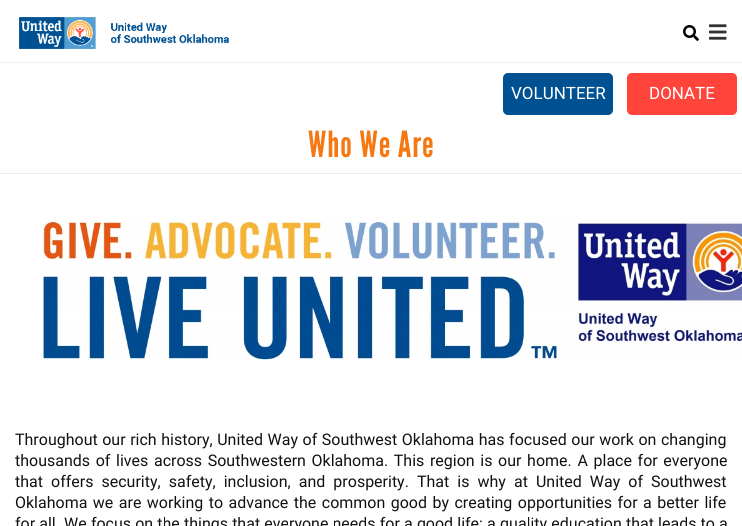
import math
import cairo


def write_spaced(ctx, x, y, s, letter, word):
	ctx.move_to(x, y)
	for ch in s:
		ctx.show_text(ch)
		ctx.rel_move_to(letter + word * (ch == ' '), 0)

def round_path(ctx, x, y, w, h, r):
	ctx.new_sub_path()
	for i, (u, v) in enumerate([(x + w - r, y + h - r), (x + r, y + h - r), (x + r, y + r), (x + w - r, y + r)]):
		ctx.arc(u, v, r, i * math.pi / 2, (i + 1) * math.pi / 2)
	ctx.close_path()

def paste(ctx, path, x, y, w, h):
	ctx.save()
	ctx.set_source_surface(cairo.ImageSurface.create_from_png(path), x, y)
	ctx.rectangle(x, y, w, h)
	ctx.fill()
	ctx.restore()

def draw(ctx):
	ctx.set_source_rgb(1, 1, 1)
	ctx.paint()
	ctx.set_source_rgb(0.937, 0.937, 0.937)
	ctx.rectangle(0, 62, 742, 1)
	ctx.fill()
	paste(ctx, 'media/1.png', 19, 17, 210, 32)
	paste(ctx, 'media/2.png', 683, 25, 16, 16)
	paste(ctx, 'media/3.png', 709, 24, 18, 16)
	ctx.set_source_rgb(0, 0.318, 0.569)
	round_path(ctx, 503, 73, 110, 42, 5)
	ctx.fill()
	ctx.select_font_face('Roboto')
	ctx.set_font_size(17)
	ctx.set_source_rgb(1, 1, 1)
	ctx.move_to(511, 99)
	ctx.show_text('VOLUNTEER')
	ctx.set_source_rgb(1, 0.267, 0.231)
	round_path(ctx, 627, 73, 110, 42, 5)
	ctx.fill()
	ctx.set_source_rgb(1, 1, 1)
	ctx.move_to(649, 99)
	ctx.show_text('DONATE')
	ctx.set_source_rgb(0.933, 0.933, 0.933)
	ctx.rectangle(0, 173, 742, 1)
	ctx.fill()
	ctx.select_font_face('League Gothic')
	ctx.set_font_size(36)
	ctx.set_source_rgb(0.961, 0.471, 0.078)
	write_spaced(ctx, 308, 157, 'Who We Are', 1, 0)
	paste(ctx, 'media/4.png', 42, 221, 700, 139)
	ctx.select_font_face('Roboto')
	ctx.set_font_size(16)
	ctx.set_source_rgb(0.067, 0.067, 0.067)
	write_spaced(ctx, 15, 445, 'Throughout our rich history, United Way of Southwest Oklahoma has focused our work on changing', 0, 0.6)
	write_spaced(ctx, 15, 466, 'thousands of lives across Southwestern Oklahoma. This region is our home. A place for everyone', 0, 1.7)
	write_spaced(ctx, 15, 487, 'that offers security, safety, inclusion, and prosperity. That is why at United Way of Southwest', 0, 4.1)
	write_spaced(ctx, 15, 508, 'Oklahoma we are working to advance the common good by creating opportunities for a better life', 0, 1.5)
	write_spaced(ctx, 15, 529, 'for all. We focus on the things that everyone needs for a good life: a quality education that leads to a', 0, 0.2)


surface = cairo.ImageSurface(cairo.FORMAT_RGB24, 742, 526)
ctx = cairo.Context(surface)
options = cairo.FontOptions()
options.set_hint_metrics(cairo.HINT_METRICS_OFF)
options.set_hint_style(cairo.HINT_STYLE_NONE)
ctx.set_font_options(options)
ctx.set_miter_limit(4)
draw(ctx)
surface.write_to_png('image.png')
